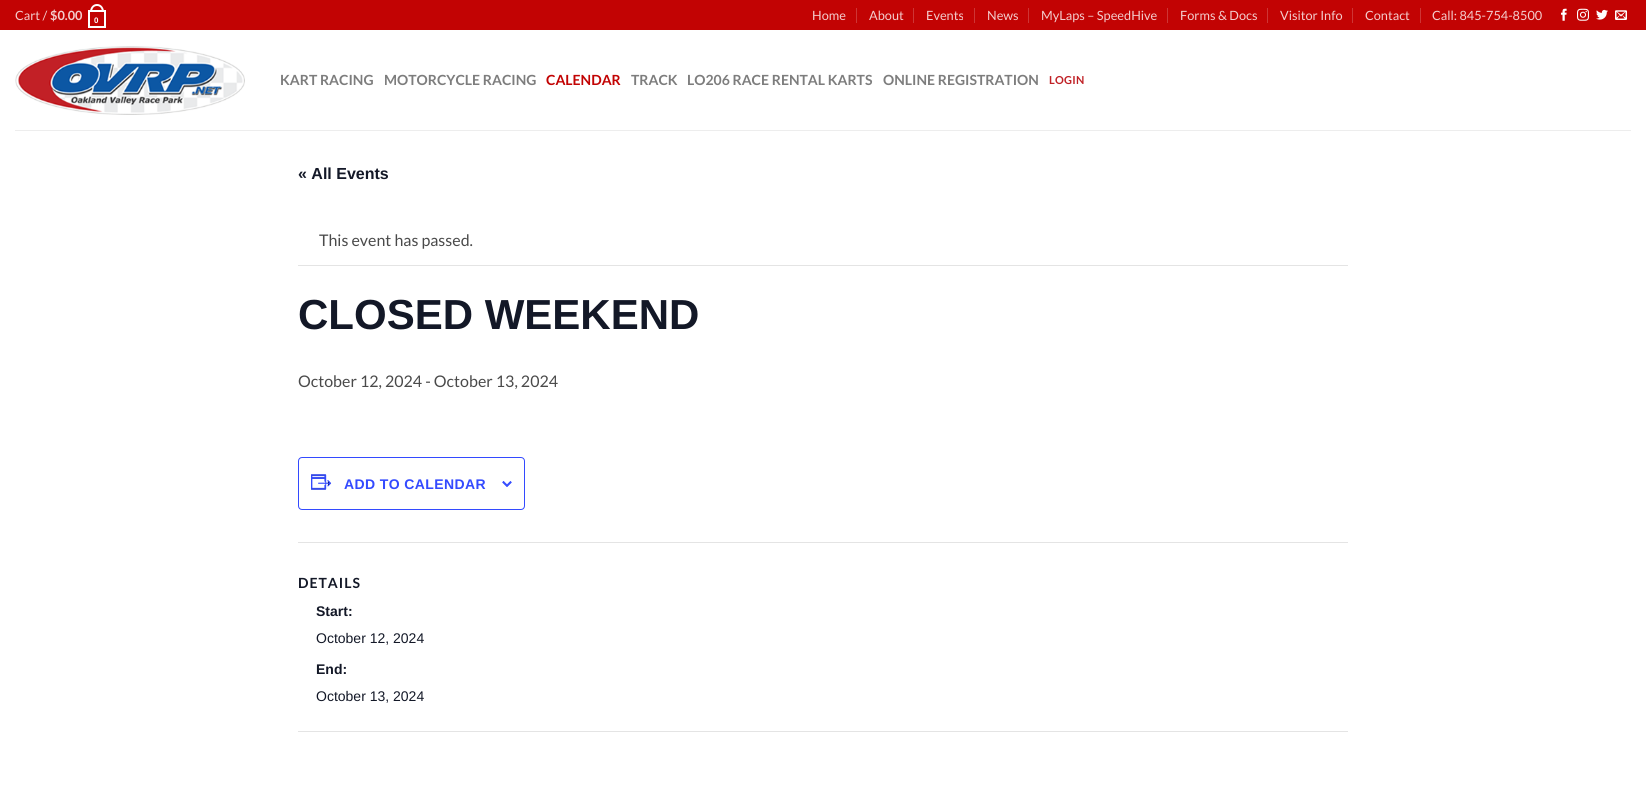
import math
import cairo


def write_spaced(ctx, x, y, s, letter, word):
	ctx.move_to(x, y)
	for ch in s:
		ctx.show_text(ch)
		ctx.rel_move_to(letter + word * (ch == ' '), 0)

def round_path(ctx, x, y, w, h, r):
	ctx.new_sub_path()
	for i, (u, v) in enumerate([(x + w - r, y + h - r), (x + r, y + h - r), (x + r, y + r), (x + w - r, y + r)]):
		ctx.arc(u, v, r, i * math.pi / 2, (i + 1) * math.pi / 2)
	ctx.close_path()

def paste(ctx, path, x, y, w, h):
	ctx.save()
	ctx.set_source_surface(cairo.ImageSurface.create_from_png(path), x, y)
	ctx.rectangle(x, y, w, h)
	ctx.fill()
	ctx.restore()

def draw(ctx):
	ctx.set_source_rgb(1, 1, 1)
	ctx.paint()
	ctx.set_source_rgb(0.761, 0.012, 0.012)
	ctx.rectangle(0, 0, 1646, 30)
	ctx.fill()
	ctx.select_font_face('Lato')
	ctx.set_font_size(12.75)
	ctx.set_source_rgb(0.953, 0.804, 0.804)
	ctx.move_to(15, 20)
	ctx.show_text('Cart /')
	ctx.select_font_face('Lato', cairo.FONT_SLANT_NORMAL, cairo.FONT_WEIGHT_BOLD)
	ctx.move_to(50, 20)
	ctx.show_text('$0.00')
	ctx.rectangle(89, 11, 16, 16)
	ctx.set_source_rgb(1, 1, 1)
	ctx.stroke()
	ctx.set_fill_rule(cairo.FILL_RULE_EVEN_ODD)
	ctx.new_path()
	ctx.move_to(97, 4)
	ctx.curve_to(101.5, 4, 104, 8, 104, 12)
	ctx.line_to(90, 12)
	ctx.curve_to(90, 8, 92.5, 4, 97, 4)
	ctx.close_path()
	ctx.move_to(97, 6)
	ctx.curve_to(100.5, 6, 102, 9, 102, 12)
	ctx.line_to(92, 12)
	ctx.curve_to(92, 9, 93.5, 6, 97, 6)
	ctx.close_path()
	ctx.fill()
	ctx.select_font_face('Liberation Sans', cairo.FONT_SLANT_NORMAL, cairo.FONT_WEIGHT_BOLD)
	ctx.set_font_size(8)
	ctx.move_to(94, 23)
	ctx.show_text('0')
	ctx.select_font_face('Lato')
	ctx.set_font_size(12.75)
	ctx.set_source_rgb(0.953, 0.804, 0.804)
	ctx.move_to(812, 20)
	ctx.show_text('Home')
	ctx.set_source_rgb(0.808, 0.208, 0.208)
	ctx.rectangle(856, 8, 1, 15)
	ctx.fill()
	ctx.set_source_rgb(0.953, 0.804, 0.804)
	ctx.move_to(869, 20)
	ctx.show_text('About')
	ctx.set_source_rgb(0.808, 0.208, 0.208)
	ctx.rectangle(913, 8, 1, 15)
	ctx.fill()
	ctx.set_source_rgb(0.953, 0.804, 0.804)
	ctx.move_to(926, 20)
	ctx.show_text('Events')
	ctx.set_source_rgb(0.808, 0.208, 0.208)
	ctx.rectangle(974, 8, 1, 15)
	ctx.fill()
	ctx.set_source_rgb(0.953, 0.804, 0.804)
	ctx.move_to(987, 20)
	ctx.show_text('News')
	ctx.set_source_rgb(0.808, 0.208, 0.208)
	ctx.rectangle(1028, 8, 1, 15)
	ctx.fill()
	ctx.set_source_rgb(0.953, 0.804, 0.804)
	ctx.move_to(1041, 20)
	ctx.show_text('MyLaps – SpeedHive')
	ctx.set_source_rgb(0.808, 0.208, 0.208)
	ctx.rectangle(1167, 8, 1, 15)
	ctx.fill()
	ctx.set_source_rgb(0.953, 0.804, 0.804)
	ctx.move_to(1180, 20)
	ctx.show_text('Forms & Docs')
	ctx.set_source_rgb(0.808, 0.208, 0.208)
	ctx.rectangle(1267, 8, 1, 15)
	ctx.fill()
	ctx.set_source_rgb(0.953, 0.804, 0.804)
	ctx.move_to(1280, 20)
	ctx.show_text('Visitor Info')
	ctx.set_source_rgb(0.808, 0.208, 0.208)
	ctx.rectangle(1352, 8, 1, 15)
	ctx.fill()
	ctx.set_source_rgb(0.953, 0.804, 0.804)
	ctx.move_to(1365, 20)
	ctx.show_text('Contact')
	ctx.set_source_rgb(0.808, 0.208, 0.208)
	ctx.rectangle(1420, 8, 1, 15)
	ctx.fill()
	ctx.set_source_rgb(0.953, 0.804, 0.804)
	ctx.move_to(1432, 20)
	ctx.show_text('Call: 845-754-8500')
	paste(ctx, 'media/1.png', 1561, 8, 6, 13)
	paste(ctx, 'media/2.png', 1577, 8, 12, 13)
	paste(ctx, 'media/3.png', 1596, 9, 12, 11)
	paste(ctx, 'media/4.png', 1615, 10, 12, 10)
	paste(ctx, 'media/5.png', 15, 46, 230, 69)
	ctx.select_font_face('Lato', cairo.FONT_SLANT_NORMAL, cairo.FONT_WEIGHT_BOLD)
	ctx.set_font_size(14)
	ctx.set_source_rgb(0.49, 0.49, 0.49)
	ctx.move_to(280, 85)
	ctx.show_text('KART RACING')
	ctx.move_to(384, 85)
	ctx.show_text('MOTORCYCLE RACING')
	ctx.set_source_rgb(0.761, 0.012, 0.012)
	ctx.move_to(546, 85)
	ctx.show_text('CALENDAR')
	ctx.set_source_rgb(0.49, 0.49, 0.49)
	for x, y, s in [
		(631, 85, 'TRACK'),
		(687, 85, 'LO206 RACE RENTAL KARTS'),
		(883, 85, 'ONLINE REGISTRATION'),
	]:
		ctx.move_to(x, y)
		ctx.show_text(s)
	ctx.set_font_size(11)
	ctx.set_source_rgb(0.753, 0.129, 0.149)
	write_spaced(ctx, 1049, 84, 'LOGIN', 0.25, 0)
	ctx.set_source_rgb(0.929, 0.929, 0.929)
	ctx.rectangle(15, 130, 1616, 1)
	ctx.fill()
	ctx.select_font_face('Liberation Sans', cairo.FONT_SLANT_NORMAL, cairo.FONT_WEIGHT_BOLD)
	ctx.set_font_size(16)
	ctx.set_source_rgb(0.078, 0.094, 0.153)
	ctx.move_to(298, 179)
	ctx.show_text('« All Events')
	ctx.set_source_rgb(0.894, 0.894, 0.894)
	ctx.rectangle(298, 265, 1050, 1)
	ctx.fill()
	ctx.select_font_face('Lato')
	ctx.set_source_rgb(0.29, 0.29, 0.29)
	ctx.move_to(319, 246)
	ctx.show_text('This event has passed.')
	ctx.select_font_face('Liberation Sans', cairo.FONT_SLANT_NORMAL, cairo.FONT_WEIGHT_BOLD)
	ctx.set_font_size(42)
	ctx.set_source_rgb(0.078, 0.094, 0.153)
	ctx.move_to(298, 329)
	ctx.show_text('CLOSED WEEKEND')
	ctx.select_font_face('Lato')
	ctx.set_font_size(16)
	ctx.set_source_rgb(0.29, 0.29, 0.29)
	ctx.move_to(298, 387)
	ctx.show_text('October 12, 2024 - October 13, 2024')
	round_path(ctx, 298.5, 457.5, 226, 52, 3.5)
	ctx.set_source_rgb(0.2, 0.29, 1)
	ctx.set_line_width(1)
	ctx.stroke()
	paste(ctx, 'media/6.png', 311, 474, 21, 16)
	ctx.select_font_face('Liberation Sans', cairo.FONT_SLANT_NORMAL, cairo.FONT_WEIGHT_BOLD)
	ctx.set_font_size(14)
	write_spaced(ctx, 344, 489, 'ADD TO CALENDAR', 0.4, 0)
	paste(ctx, 'media/7.png', 502, 481, 10, 6)
	ctx.set_source_rgb(0.894, 0.894, 0.894)
	ctx.rectangle(298, 542, 1050, 1)
	ctx.fill()
	ctx.select_font_face('Lato', cairo.FONT_SLANT_NORMAL, cairo.FONT_WEIGHT_BOLD)
	ctx.set_source_rgb(0.078, 0.094, 0.153)
	write_spaced(ctx, 298, 588, 'DETAILS', 1, 0)
	ctx.select_font_face('Liberation Sans', cairo.FONT_SLANT_NORMAL, cairo.FONT_WEIGHT_BOLD)
	ctx.move_to(316, 616)
	ctx.show_text('Start:')
	ctx.select_font_face('Liberation Sans')
	ctx.move_to(316, 643)
	ctx.show_text('October 12, 2024')
	ctx.select_font_face('Liberation Sans', cairo.FONT_SLANT_NORMAL, cairo.FONT_WEIGHT_BOLD)
	ctx.move_to(316, 674)
	ctx.show_text('End:')
	ctx.select_font_face('Liberation Sans')
	ctx.move_to(316, 701)
	ctx.show_text('October 13, 2024')
	ctx.set_source_rgb(0.894, 0.894, 0.894)
	ctx.rectangle(298, 731, 1050, 1)
	ctx.fill()


surface = cairo.ImageSurface(cairo.FORMAT_RGB24, 1646, 788)
ctx = cairo.Context(surface)
options = cairo.FontOptions()
options.set_hint_metrics(cairo.HINT_METRICS_OFF)
options.set_hint_style(cairo.HINT_STYLE_NONE)
ctx.set_font_options(options)
ctx.set_miter_limit(4)
draw(ctx)
surface.write_to_png('image.png')
